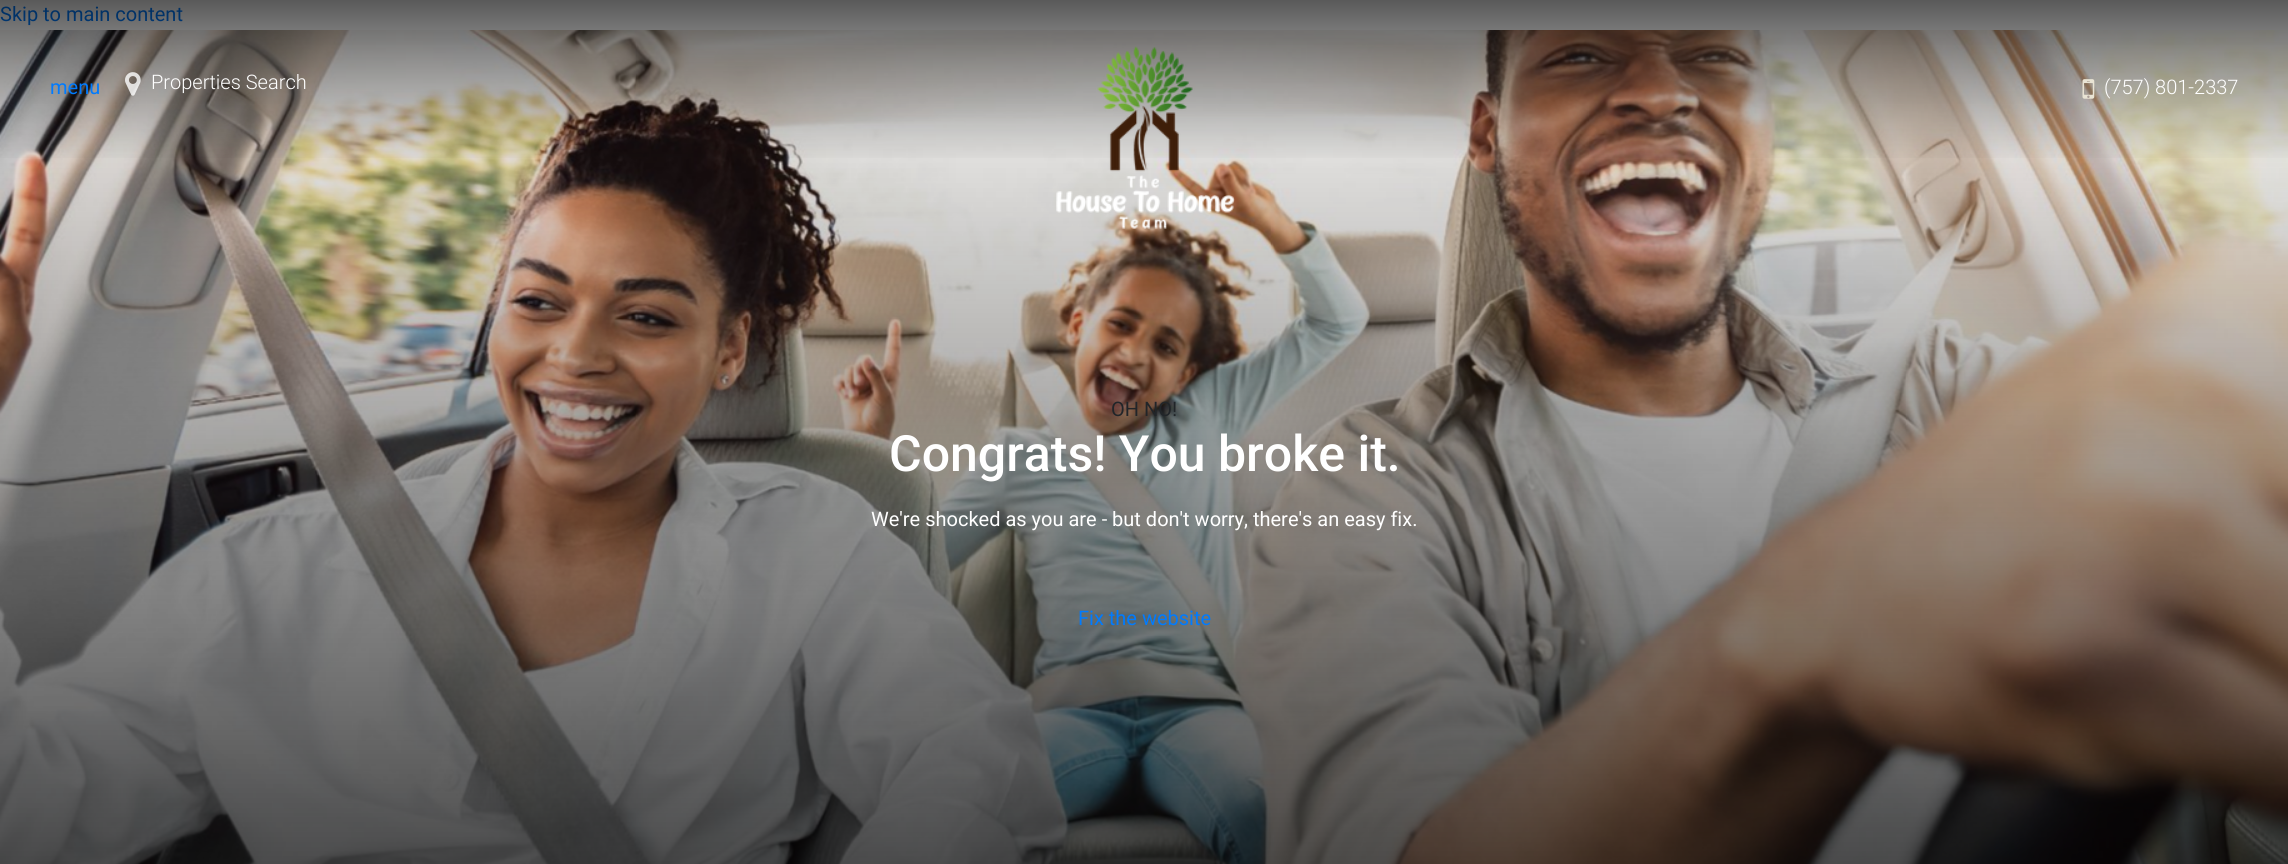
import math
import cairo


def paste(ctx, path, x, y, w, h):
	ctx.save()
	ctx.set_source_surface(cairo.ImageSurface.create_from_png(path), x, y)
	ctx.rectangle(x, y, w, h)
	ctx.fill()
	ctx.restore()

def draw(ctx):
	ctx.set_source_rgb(1, 1, 1)
	ctx.paint()
	ctx.select_font_face('Roboto')
	ctx.set_font_size(20)
	ctx.set_source_rgb(0, 0.482, 1)
	ctx.move_to(0, 21)
	ctx.show_text('Skip to main content')
	paste(ctx, 'media/4.png', 0, 30, 2288, 834)
	gradient = cairo.LinearGradient(1144, 0, 1144, 163)
	gradient.add_color_stop_rgba(0, 0, 0, 0, 0.65)
	gradient.add_color_stop_rgba(1, 0, 0, 0, 0)
	ctx.set_source(gradient)
	ctx.rectangle(0, 0, 2288, 158)
	ctx.fill()
	ctx.set_source_rgb(0, 0.482, 1)
	ctx.move_to(50, 94)
	ctx.show_text('menu')
	paste(ctx, 'media/1.png', 125, 72, 16, 24)
	ctx.select_font_face('Roboto Light')
	ctx.set_source_rgb(1, 1, 1)
	ctx.move_to(151, 89)
	ctx.show_text('Properties Search')
	paste(ctx, 'media/2.png', 1056, 46, 179, 183)
	paste(ctx, 'media/3.png', 2082, 79, 13, 20)
	ctx.move_to(2104, 94)
	ctx.show_text('(757) 801-2337')
	ctx.select_font_face('Roboto')
	ctx.set_source_rgb(0.129, 0.145, 0.161)
	ctx.move_to(1111, 416)
	ctx.show_text('OH NO!')
	ctx.select_font_face('Roboto Medium')
	ctx.set_font_size(50)
	ctx.set_source_rgb(1, 1, 1)
	ctx.move_to(889, 471)
	ctx.show_text('Congrats! You broke it.')
	ctx.select_font_face('Roboto')
	ctx.set_font_size(20)
	ctx.move_to(871, 526)
	ctx.show_text('We\'re shocked as you are - but don\'t worry, there\'s an easy fix.')
	ctx.set_source_rgb(0, 0.482, 1)
	ctx.move_to(1078, 625)
	ctx.show_text('Fix the website')


surface = cairo.ImageSurface(cairo.FORMAT_RGB24, 2288, 864)
ctx = cairo.Context(surface)
options = cairo.FontOptions()
options.set_hint_metrics(cairo.HINT_METRICS_OFF)
options.set_hint_style(cairo.HINT_STYLE_NONE)
ctx.set_font_options(options)
ctx.set_miter_limit(4)
draw(ctx)
surface.write_to_png('image.png')
